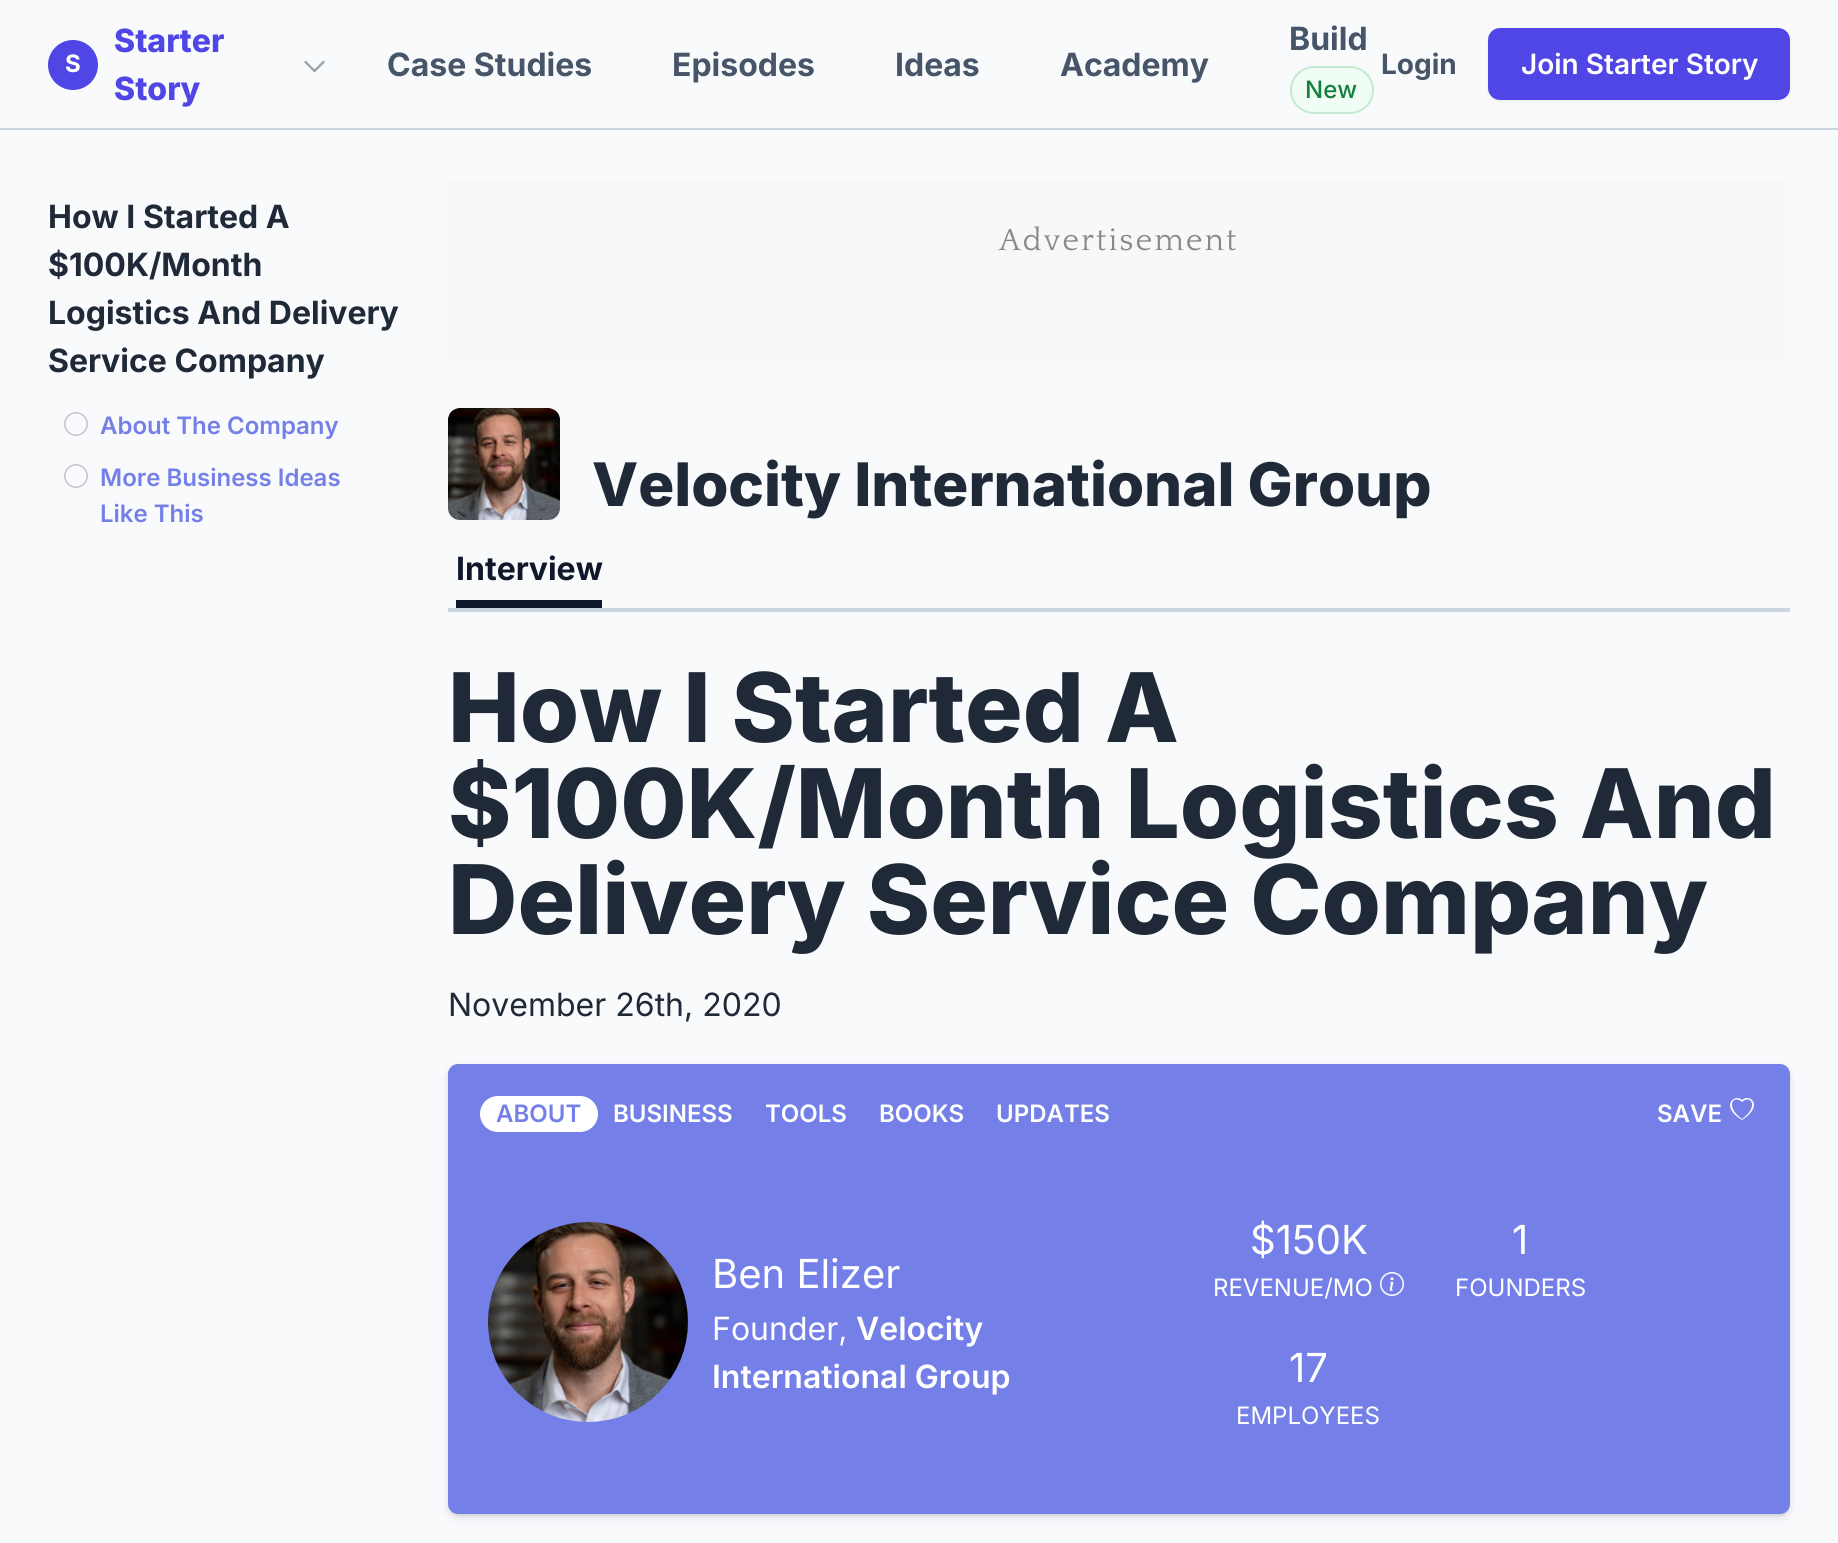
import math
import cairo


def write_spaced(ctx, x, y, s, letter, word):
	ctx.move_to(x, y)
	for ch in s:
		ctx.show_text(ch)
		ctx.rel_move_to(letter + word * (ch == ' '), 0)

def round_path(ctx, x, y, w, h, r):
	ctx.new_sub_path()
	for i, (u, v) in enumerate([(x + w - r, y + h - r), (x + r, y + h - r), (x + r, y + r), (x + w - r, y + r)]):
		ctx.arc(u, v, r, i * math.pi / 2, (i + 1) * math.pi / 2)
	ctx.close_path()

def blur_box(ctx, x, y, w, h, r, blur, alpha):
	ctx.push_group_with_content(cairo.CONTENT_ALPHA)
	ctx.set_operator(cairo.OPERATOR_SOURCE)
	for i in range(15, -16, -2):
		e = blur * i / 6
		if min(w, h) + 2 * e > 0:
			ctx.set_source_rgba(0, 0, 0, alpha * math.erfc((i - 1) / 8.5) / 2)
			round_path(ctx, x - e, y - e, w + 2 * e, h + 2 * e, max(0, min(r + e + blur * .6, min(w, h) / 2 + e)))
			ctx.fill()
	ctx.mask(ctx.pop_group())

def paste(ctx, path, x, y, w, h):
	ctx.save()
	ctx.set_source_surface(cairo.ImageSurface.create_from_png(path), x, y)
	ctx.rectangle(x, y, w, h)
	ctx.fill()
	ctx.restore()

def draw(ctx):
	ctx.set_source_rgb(0.973, 0.98, 0.988)
	ctx.paint()
	ctx.set_source_rgb(0.796, 0.835, 0.882)
	ctx.rectangle(0, 128, 1838, 2)
	ctx.fill()
	ctx.set_source_rgb(0.31, 0.275, 0.898)
	ctx.arc(73, 65, 25, 0, 2 * math.pi)
	ctx.fill()
	ctx.select_font_face('Inter', cairo.FONT_SLANT_NORMAL, cairo.FONT_WEIGHT_BOLD)
	ctx.set_font_size(24)
	ctx.set_source_rgb(1, 1, 1)
	ctx.move_to(65, 72)
	ctx.show_text('S')
	ctx.select_font_face('Inter ExtraBold')
	ctx.set_font_size(32)
	ctx.set_source_rgb(0.31, 0.275, 0.898)
	ctx.move_to(114, 52)
	ctx.show_text('Starter')
	ctx.move_to(114, 100)
	ctx.show_text('Story')
	ctx.new_path()
	ctx.move_to(323.5, 62)
	ctx.line_to(314.5, 71)
	ctx.line_to(305.5, 62)
	ctx.set_source_rgb(0.612, 0.639, 0.686)
	ctx.set_line_width(2.4)
	ctx.set_line_cap(cairo.LINE_CAP_ROUND)
	ctx.set_line_join(cairo.LINE_JOIN_ROUND)
	ctx.stroke()
	ctx.select_font_face('Inter', cairo.FONT_SLANT_NORMAL, cairo.FONT_WEIGHT_BOLD)
	ctx.set_source_rgb(0.278, 0.333, 0.412)
	for x, y, s in [
		(387, 76, 'Case Studies'),
		(672, 76, 'Episodes'),
		(895, 76, 'Ideas'),
		(1060, 76, 'Academy'),
		(1289, 50, 'Build'),
	]:
		ctx.move_to(x, y)
		ctx.show_text(s)
	ctx.set_source_rgb(0.941, 0.992, 0.957)
	round_path(ctx, 1290, 66, 84, 48, 24)
	ctx.fill()
	round_path(ctx, 1291, 67, 82, 46, 23)
	ctx.set_source_rgba(0.086, 0.639, 0.29, 0.2)
	ctx.set_line_width(2)
	ctx.set_line_cap(cairo.LINE_CAP_BUTT)
	ctx.set_line_join(cairo.LINE_JOIN_MITER)
	ctx.stroke()
	ctx.select_font_face('Inter Medium')
	ctx.set_font_size(24)
	ctx.set_source_rgb(0.082, 0.502, 0.239)
	ctx.move_to(1305, 98)
	ctx.show_text('New')
	ctx.select_font_face('Inter', cairo.FONT_SLANT_NORMAL, cairo.FONT_WEIGHT_BOLD)
	ctx.set_font_size(28)
	ctx.set_source_rgb(0.278, 0.333, 0.412)
	ctx.move_to(1381, 74)
	ctx.show_text('Login')
	ctx.set_source_rgb(0, 0, 0)
	blur_box(ctx, 1488, 30, 302, 72, 12, 2, 0.05)
	ctx.set_source_rgb(0.31, 0.275, 0.898)
	round_path(ctx, 1488, 28, 302, 72, 12)
	ctx.fill()
	ctx.select_font_face('Inter SemiBold')
	ctx.set_source_rgb(1, 1, 1)
	ctx.move_to(1521, 74)
	ctx.show_text('Join Starter Story')
	ctx.select_font_face('Inter', cairo.FONT_SLANT_NORMAL, cairo.FONT_WEIGHT_BOLD)
	ctx.set_font_size(32)
	ctx.set_source_rgb(0.122, 0.161, 0.216)
	for x, y, s in [
		(48, 228, 'How I Started A'),
		(48, 276, '$100K/Month'),
		(48, 324, 'Logistics And Delivery'),
		(48, 372, 'Service Company'),
	]:
		ctx.move_to(x, y)
		ctx.show_text(s)
	paste(ctx, 'media/1.png', 64, 412, 24, 24)
	ctx.select_font_face('Inter SemiBold')
	ctx.set_font_size(24)
	ctx.set_source_rgb(0.455, 0.502, 0.906)
	ctx.move_to(100, 434)
	ctx.show_text('About The Company')
	paste(ctx, 'media/1.png', 64, 464, 24, 24)
	ctx.move_to(100, 486)
	ctx.show_text('More Business Ideas')
	ctx.move_to(100, 522)
	ctx.show_text('Like This')
	ctx.set_source_rgb(0.969, 0.969, 0.969)
	ctx.rectangle(448, 180, 1342, 180)
	ctx.fill()
	ctx.select_font_face('Quattrocento')
	ctx.set_font_size(32)
	ctx.set_source_rgb(0.533, 0.533, 0.533)
	write_spaced(ctx, 999, 250, 'Advertisement', 2, 0)
	paste(ctx, 'media/2.png', 448, 408, 112, 112)
	ctx.select_font_face('Inter ExtraBold')
	ctx.set_font_size(60)
	ctx.set_source_rgb(0.122, 0.161, 0.216)
	ctx.move_to(592, 506)
	ctx.show_text('Velocity International Group')
	ctx.set_source_rgb(0.796, 0.835, 0.882)
	ctx.rectangle(448, 608, 1342, 4)
	ctx.fill()
	ctx.set_source_rgb(0.059, 0.09, 0.165)
	ctx.rectangle(456, 600, 146, 8)
	ctx.fill()
	ctx.select_font_face('Inter', cairo.FONT_SLANT_NORMAL, cairo.FONT_WEIGHT_BOLD)
	ctx.set_font_size(32)
	ctx.move_to(456, 580)
	ctx.show_text('Interview')
	ctx.select_font_face('Inter ExtraBold')
	ctx.set_font_size(96)
	ctx.set_source_rgb(0.122, 0.161, 0.216)
	for x, y, s in [
		(448, 742, 'How I Started A'),
		(448, 838, '$100K/Month Logistics And'),
		(448, 934, 'Delivery Service Company'),
	]:
		ctx.move_to(x, y)
		ctx.show_text(s)
	ctx.select_font_face('Inter')
	ctx.set_font_size(32)
	ctx.move_to(448, 1016)
	ctx.show_text('November 26th, 2020')
	ctx.set_source_rgb(0.035, 0.047, 0.141)
	blur_box(ctx, 448, 1068, 1342, 450, 10, 4, 0.11)
	ctx.set_source_rgb(0.043, 0.051, 0.153)
	blur_box(ctx, 448, 1066, 1342, 450, 10, 1, 0.07)
	ctx.set_source_rgb(0.455, 0.502, 0.906)
	round_path(ctx, 448, 1064, 1342, 450, 10)
	ctx.fill()
	ctx.set_source_rgb(1, 1, 1)
	round_path(ctx, 480, 1096, 118, 36, 18)
	ctx.fill()
	ctx.select_font_face('Inter SemiBold')
	ctx.set_font_size(24)
	ctx.set_source_rgb(0.455, 0.502, 0.906)
	ctx.move_to(496, 1122)
	ctx.show_text('ABOUT')
	ctx.set_source_rgb(1, 1, 1)
	for x, y, s in [
		(613, 1122, 'BUSINESS'),
		(765, 1122, 'TOOLS'),
		(879, 1122, 'BOOKS'),
		(996, 1122, 'UPDATES'),
		(1657, 1122, 'SAVE'),
	]:
		ctx.move_to(x, y)
		ctx.show_text(s)
	ctx.new_path()
	ctx.move_to(1742, 1102)
	ctx.curve_to(1734, 1094, 1724, 1106, 1742, 1119)
	ctx.curve_to(1760, 1106, 1750, 1094, 1742, 1102)
	ctx.close_path()
	ctx.move_to(1742, 1120)
	ctx.curve_to(1719, 1106, 1735, 1093, 1742, 1100)
	ctx.curve_to(1749, 1093, 1765, 1105, 1742, 1120)
	ctx.close_path()
	ctx.fill()
	paste(ctx, 'media/3.png', 488, 1222, 200, 200)
	ctx.select_font_face('Inter')
	ctx.set_font_size(40)
	ctx.move_to(712, 1288)
	ctx.show_text('Ben Elizer')
	ctx.set_font_size(32)
	ctx.move_to(712, 1340)
	ctx.show_text('Founder,')
	ctx.select_font_face('Inter SemiBold')
	ctx.move_to(856, 1340)
	ctx.show_text('Velocity')
	ctx.move_to(712, 1388)
	ctx.show_text('International Group')
	ctx.select_font_face('Inter')
	ctx.set_font_size(40)
	ctx.move_to(1250, 1254)
	ctx.show_text('$150K')
	ctx.set_font_size(24)
	ctx.move_to(1213, 1296)
	ctx.show_text('REVENUE/MO')
	paste(ctx, 'media/4.png', 1380, 1272, 24, 24)
	ctx.set_font_size(40)
	ctx.move_to(1512, 1254)
	ctx.show_text('1')
	ctx.set_font_size(24)
	ctx.move_to(1455, 1296)
	ctx.show_text('FOUNDERS')
	ctx.set_font_size(40)
	ctx.move_to(1289, 1382)
	ctx.show_text('17')
	ctx.set_font_size(24)
	ctx.move_to(1236, 1424)
	ctx.show_text('EMPLOYEES')


surface = cairo.ImageSurface(cairo.FORMAT_RGB24, 1838, 1543)
ctx = cairo.Context(surface)
options = cairo.FontOptions()
options.set_hint_metrics(cairo.HINT_METRICS_OFF)
options.set_hint_style(cairo.HINT_STYLE_NONE)
ctx.set_font_options(options)
ctx.set_miter_limit(4)
draw(ctx)
surface.write_to_png('image.png')
